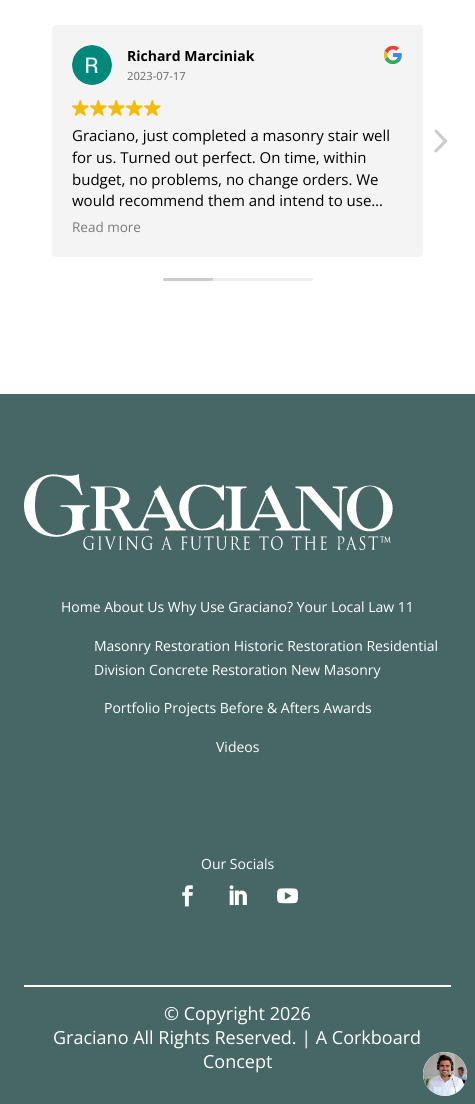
import math
import cairo


def round_path(ctx, x, y, w, h, r):
	ctx.new_sub_path()
	for i, (u, v) in enumerate([(x + w - r, y + h - r), (x + r, y + h - r), (x + r, y + r), (x + w - r, y + r)]):
		ctx.arc(u, v, r, i * math.pi / 2, (i + 1) * math.pi / 2)
	ctx.close_path()

def paste(ctx, path, x, y, w, h):
	ctx.save()
	ctx.set_source_surface(cairo.ImageSurface.create_from_png(path), x, y)
	ctx.rectangle(x, y, w, h)
	ctx.fill()
	ctx.restore()

def draw(ctx):
	ctx.set_source_rgb(1, 1, 1)
	ctx.paint()
	ctx.set_source_rgb(0.957, 0.957, 0.957)
	round_path(ctx, 52, 25, 371, 232, 4)
	ctx.fill()
	paste(ctx, 'media/1.png', 72, 45, 40, 40)
	ctx.select_font_face('Open Sans', cairo.FONT_SLANT_NORMAL, cairo.FONT_WEIGHT_BOLD)
	ctx.set_font_size(14)
	ctx.set_source_rgb(0, 0, 0)
	ctx.move_to(127, 61)
	ctx.show_text('Richard Marciniak')
	ctx.select_font_face('Open Sans Medium')
	ctx.set_font_size(11.25)
	ctx.set_source_rgb(0.478, 0.478, 0.478)
	ctx.move_to(127, 80)
	ctx.show_text('2023-07-17')
	paste(ctx, 'media/2.png', 383, 45, 19, 20)
	paste(ctx, 'media/3.png', 72, 100, 17, 16)
	paste(ctx, 'media/3.png', 90, 100, 17, 16)
	paste(ctx, 'media/3.png', 108, 100, 17, 16)
	paste(ctx, 'media/3.png', 126, 100, 17, 16)
	paste(ctx, 'media/3.png', 144, 100, 17, 16)
	ctx.select_font_face('Open Sans')
	ctx.set_font_size(15)
	ctx.set_source_rgb(0, 0, 0)
	for x, y, s in [
		(72, 141, 'Graciano, just completed a masonry stair well'),
		(72, 163, 'for us. Turned out perfect. On time, within'),
		(72, 185, 'budget, no problems, no change orders. We'),
		(72, 206, 'would recommend them and intend to use…'),
	]:
		ctx.move_to(x, y)
		ctx.show_text(s)
	ctx.set_font_size(13.5)
	ctx.set_source_rgb(0.478, 0.478, 0.478)
	ctx.move_to(72, 232)
	ctx.show_text('Read more')
	ctx.set_source_rgb(0.8, 0.8, 0.8)
	ctx.new_path()
	ctx.move_to(437, 130)
	ctx.line_to(447, 140.5)
	ctx.curve_to(447.5, 141, 447, 142, 446.5, 142)
	ctx.line_to(445, 142.5)
	ctx.curve_to(444.5, 142, 434.5, 132, 434.5, 131.5)
	ctx.curve_to(434, 130, 436, 129, 437, 130)
	ctx.close_path()
	ctx.fill()
	ctx.new_path()
	ctx.move_to(434.5, 150)
	ctx.line_to(445, 139.5)
	ctx.curve_to(446, 139.5, 446.5, 139.5, 447, 140)
	ctx.line_to(447, 141.5)
	ctx.curve_to(446.5, 142.5, 437, 152.5, 436, 152.5)
	ctx.curve_to(434.5, 152.5, 433.5, 151, 434.5, 150)
	ctx.close_path()
	ctx.fill()
	ctx.set_source_rgb(0.929, 0.929, 0.929)
	round_path(ctx, 163, 278, 150, 3, 1.5)
	ctx.fill()
	ctx.set_source_rgb(0.8, 0.8, 0.8)
	round_path(ctx, 163, 278, 50, 3, 1.5)
	ctx.fill()
	ctx.set_source_rgb(0.275, 0.404, 0.4)
	ctx.rectangle(0, 394, 475, 710)
	ctx.fill()
	paste(ctx, 'media/4.png', 24, 474, 369, 76)
	ctx.select_font_face('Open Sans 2')
	ctx.set_font_size(14)
	ctx.set_source_rgb(1, 1, 1)
	for x, y, s in [
		(61, 612, 'Home About Us Why Use Graciano? Your Local Law 11'),
		(94, 651, 'Masonry Restoration Historic Restoration Residential'),
		(94, 675, 'Division Concrete Restoration New Masonry'),
		(104, 713, 'Portfolio Projects Before & Afters Awards'),
		(216, 752, 'Videos'),
		(201, 869, 'Our Socials'),
	]:
		ctx.move_to(x, y)
		ctx.show_text(s)
	paste(ctx, 'media/5.png', 182, 885, 11, 22)
	paste(ctx, 'media/6.png', 229, 885, 18, 20)
	paste(ctx, 'media/7.png', 277, 888, 21, 16)
	ctx.rectangle(24, 985, 427, 2)
	ctx.fill()
	ctx.set_font_size(18)
	for x, y, s in [
		(164, 1020, '© Copyright 2026'),
		(53, 1044, 'Graciano All Rights Reserved. | A Corkboard'),
		(203, 1068, 'Concept'),
	]:
		ctx.move_to(x, y)
		ctx.show_text(s)
	ctx.new_path()
	ctx.arc(445, 1074, 22, 0, 2 * math.pi)
	ctx.fill()
	paste(ctx, 'media/8.png', 423, 1052, 44, 44)


surface = cairo.ImageSurface(cairo.FORMAT_RGB24, 475, 1104)
ctx = cairo.Context(surface)
options = cairo.FontOptions()
options.set_hint_metrics(cairo.HINT_METRICS_OFF)
options.set_hint_style(cairo.HINT_STYLE_NONE)
ctx.set_font_options(options)
ctx.set_miter_limit(4)
draw(ctx)
surface.write_to_png('image.png')
